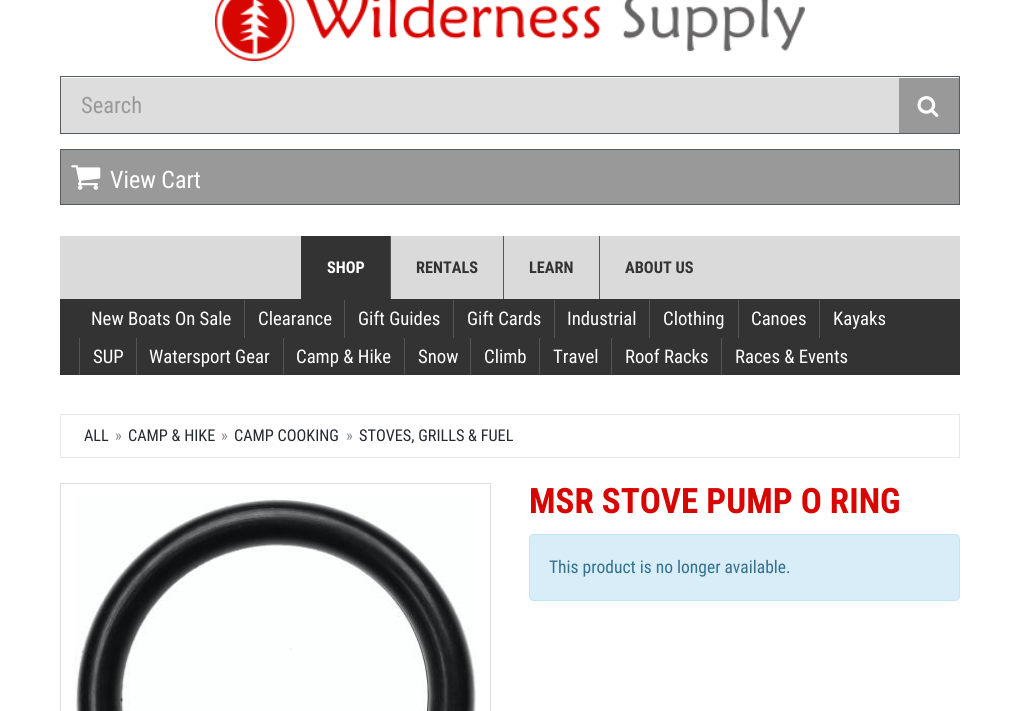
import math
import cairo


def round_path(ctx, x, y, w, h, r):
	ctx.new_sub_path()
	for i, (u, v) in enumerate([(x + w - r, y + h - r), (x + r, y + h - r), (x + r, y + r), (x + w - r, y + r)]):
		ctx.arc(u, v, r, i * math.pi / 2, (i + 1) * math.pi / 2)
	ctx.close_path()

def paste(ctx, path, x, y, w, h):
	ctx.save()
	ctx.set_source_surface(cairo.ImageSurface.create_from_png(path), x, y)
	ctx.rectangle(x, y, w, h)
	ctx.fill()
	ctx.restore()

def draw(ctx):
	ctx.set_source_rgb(1, 1, 1)
	ctx.paint()
	paste(ctx, 'media/1.png', 215, 0, 590, 61)
	ctx.set_source_rgb(0.6, 0.6, 0.6)
	ctx.rectangle(899, 78, 60, 55)
	ctx.fill()
	ctx.set_source_rgb(0.322, 0.361, 0.4)
	ctx.rectangle(60, 76, 900, 1)
	ctx.rectangle(959, 76, 1, 58)
	ctx.rectangle(60, 133, 900, 1)
	ctx.fill()
	paste(ctx, 'media/2.png', 917, 96, 22, 21)
	ctx.set_source_rgb(0.867, 0.867, 0.867)
	ctx.rectangle(61, 78, 838, 55)
	ctx.fill()
	ctx.set_source_rgb(0.322, 0.361, 0.4)
	ctx.rectangle(60, 76, 1, 58)
	ctx.fill()
	ctx.select_font_face('Roboto Condensed')
	ctx.set_font_size(22.5)
	ctx.set_source_rgb(0.6, 0.6, 0.6)
	ctx.move_to(81, 113)
	ctx.show_text('Search')
	ctx.rectangle(60.5, 149.5, 899, 55)
	ctx.fill_preserve()
	ctx.set_source_rgb(0.322, 0.361, 0.4)
	ctx.set_line_width(1)
	ctx.stroke()
	paste(ctx, 'media/3.png', 71, 165, 30, 25)
	ctx.set_font_size(24)
	ctx.set_source_rgb(1, 1, 1)
	ctx.move_to(110, 188)
	ctx.show_text('View Cart')
	ctx.set_source_rgb(0.855, 0.855, 0.855)
	ctx.rectangle(60, 236, 900, 63)
	ctx.fill()
	ctx.set_source_rgb(0.2, 0.2, 0.2)
	ctx.rectangle(301, 236, 89, 63)
	ctx.fill()
	ctx.select_font_face('Roboto Condensed', cairo.FONT_SLANT_NORMAL, cairo.FONT_WEIGHT_BOLD)
	ctx.set_font_size(16.25)
	ctx.set_source_rgb(1, 1, 1)
	ctx.move_to(327, 273)
	ctx.show_text('SHOP')
	ctx.set_source_rgb(0.333, 0.333, 0.333)
	ctx.rectangle(390, 236, 1, 63)
	ctx.fill()
	ctx.set_source_rgb(0.2, 0.2, 0.2)
	ctx.move_to(416, 273)
	ctx.show_text('RENTALS')
	ctx.set_source_rgb(0.333, 0.333, 0.333)
	ctx.rectangle(503, 236, 1, 63)
	ctx.fill()
	ctx.set_source_rgb(0.2, 0.2, 0.2)
	ctx.move_to(529, 273)
	ctx.show_text('LEARN')
	ctx.set_source_rgb(0.333, 0.333, 0.333)
	ctx.rectangle(599, 236, 1, 63)
	ctx.fill()
	ctx.set_source_rgb(0.2, 0.2, 0.2)
	ctx.move_to(625, 273)
	ctx.show_text('ABOUT US')
	ctx.rectangle(60, 299, 900, 76)
	ctx.fill()
	ctx.select_font_face('Roboto Condensed')
	ctx.set_font_size(18.75)
	ctx.set_source_rgb(1, 1, 1)
	ctx.move_to(91, 325)
	ctx.show_text('New Boats On Sale')
	ctx.set_source_rgb(0.333, 0.333, 0.333)
	ctx.rectangle(244, 300, 1, 38)
	ctx.fill()
	ctx.set_source_rgb(1, 1, 1)
	ctx.move_to(258, 325)
	ctx.show_text('Clearance')
	ctx.set_source_rgb(0.333, 0.333, 0.333)
	ctx.rectangle(344, 300, 1, 38)
	ctx.fill()
	ctx.set_source_rgb(1, 1, 1)
	ctx.move_to(358, 325)
	ctx.show_text('Gift Guides')
	ctx.set_source_rgb(0.333, 0.333, 0.333)
	ctx.rectangle(453, 300, 1, 38)
	ctx.fill()
	ctx.set_source_rgb(1, 1, 1)
	ctx.move_to(467, 325)
	ctx.show_text('Gift Cards')
	ctx.set_source_rgb(0.333, 0.333, 0.333)
	ctx.rectangle(554, 300, 1, 38)
	ctx.fill()
	ctx.set_source_rgb(1, 1, 1)
	ctx.move_to(567, 325)
	ctx.show_text('Industrial')
	ctx.set_source_rgb(0.333, 0.333, 0.333)
	ctx.rectangle(649, 300, 1, 38)
	ctx.fill()
	ctx.set_source_rgb(1, 1, 1)
	ctx.move_to(663, 325)
	ctx.show_text('Clothing')
	ctx.set_source_rgb(0.333, 0.333, 0.333)
	ctx.rectangle(738, 300, 1, 38)
	ctx.fill()
	ctx.set_source_rgb(1, 1, 1)
	ctx.move_to(751, 325)
	ctx.show_text('Canoes')
	ctx.set_source_rgb(0.333, 0.333, 0.333)
	ctx.rectangle(819, 300, 1, 38)
	ctx.fill()
	ctx.set_source_rgb(1, 1, 1)
	ctx.move_to(833, 325)
	ctx.show_text('Kayaks')
	ctx.set_source_rgb(0.333, 0.333, 0.333)
	ctx.rectangle(79, 338, 1, 37)
	ctx.fill()
	ctx.set_source_rgb(1, 1, 1)
	ctx.move_to(93, 363)
	ctx.show_text('SUP')
	ctx.set_source_rgb(0.333, 0.333, 0.333)
	ctx.rectangle(136, 338, 1, 37)
	ctx.fill()
	ctx.set_source_rgb(1, 1, 1)
	ctx.move_to(149, 363)
	ctx.show_text('Watersport Gear')
	ctx.set_source_rgb(0.333, 0.333, 0.333)
	ctx.rectangle(283, 338, 1, 37)
	ctx.fill()
	ctx.set_source_rgb(1, 1, 1)
	ctx.move_to(296, 363)
	ctx.show_text('Camp & Hike')
	ctx.set_source_rgb(0.333, 0.333, 0.333)
	ctx.rectangle(404, 338, 1, 37)
	ctx.fill()
	ctx.set_source_rgb(1, 1, 1)
	ctx.move_to(418, 363)
	ctx.show_text('Snow')
	ctx.set_source_rgb(0.333, 0.333, 0.333)
	ctx.rectangle(470, 338, 1, 37)
	ctx.fill()
	ctx.set_source_rgb(1, 1, 1)
	ctx.move_to(484, 363)
	ctx.show_text('Climb')
	ctx.set_source_rgb(0.333, 0.333, 0.333)
	ctx.rectangle(539, 338, 1, 37)
	ctx.fill()
	ctx.set_source_rgb(1, 1, 1)
	ctx.move_to(553, 363)
	ctx.show_text('Travel')
	ctx.set_source_rgb(0.333, 0.333, 0.333)
	ctx.rectangle(611, 338, 1, 37)
	ctx.fill()
	ctx.set_source_rgb(1, 1, 1)
	ctx.move_to(625, 363)
	ctx.show_text('Roof Racks')
	ctx.set_source_rgb(0.333, 0.333, 0.333)
	ctx.rectangle(721, 338, 1, 37)
	ctx.fill()
	ctx.set_source_rgb(1, 1, 1)
	ctx.move_to(735, 363)
	ctx.show_text('Races & Events')
	ctx.rectangle(60.5, 414.5, 899, 43)
	ctx.set_source_rgb(0.91, 0.91, 0.91)
	ctx.stroke()
	ctx.set_font_size(16.25)
	ctx.set_source_rgb(0.145, 0.165, 0.184)
	ctx.move_to(84, 441)
	ctx.show_text('ALL')
	ctx.set_source_rgb(0.529, 0.541, 0.549)
	ctx.move_to(115, 441)
	ctx.show_text('»')
	ctx.set_source_rgb(0.145, 0.165, 0.184)
	ctx.move_to(128, 441)
	ctx.show_text('CAMP & HIKE')
	ctx.set_source_rgb(0.529, 0.541, 0.549)
	ctx.move_to(221, 441)
	ctx.show_text('»')
	ctx.set_source_rgb(0.145, 0.165, 0.184)
	ctx.move_to(234, 441)
	ctx.show_text('CAMP COOKING')
	ctx.set_source_rgb(0.529, 0.541, 0.549)
	ctx.move_to(346, 441)
	ctx.show_text('»')
	ctx.set_source_rgb(0.145, 0.165, 0.184)
	ctx.move_to(359, 441)
	ctx.show_text('STOVES, GRILLS & FUEL')
	ctx.rectangle(60.5, 483.5, 430, 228)
	ctx.set_source_rgb(0.867, 0.867, 0.867)
	ctx.stroke()
	paste(ctx, 'media/4.png', 74, 496, 403, 215)
	ctx.select_font_face('Roboto Condensed', cairo.FONT_SLANT_NORMAL, cairo.FONT_WEIGHT_BOLD)
	ctx.set_font_size(35)
	ctx.set_source_rgb(0.843, 0.024, 0)
	ctx.move_to(529, 513)
	ctx.show_text('MSR STOVE PUMP O RING')
	ctx.set_source_rgb(0.851, 0.929, 0.969)
	round_path(ctx, 529.5, 534.5, 430, 66, 4.5)
	ctx.fill_preserve()
	ctx.set_source_rgb(0.737, 0.91, 0.945)
	ctx.stroke()
	ctx.select_font_face('Roboto Condensed')
	ctx.set_font_size(17.5)
	ctx.set_source_rgb(0.192, 0.439, 0.561)
	ctx.move_to(549, 573)
	ctx.show_text('This product is no longer available.')


surface = cairo.ImageSurface(cairo.FORMAT_RGB24, 1019, 711)
ctx = cairo.Context(surface)
options = cairo.FontOptions()
options.set_hint_metrics(cairo.HINT_METRICS_OFF)
options.set_hint_style(cairo.HINT_STYLE_NONE)
ctx.set_font_options(options)
ctx.set_miter_limit(4)
draw(ctx)
surface.write_to_png('image.png')
